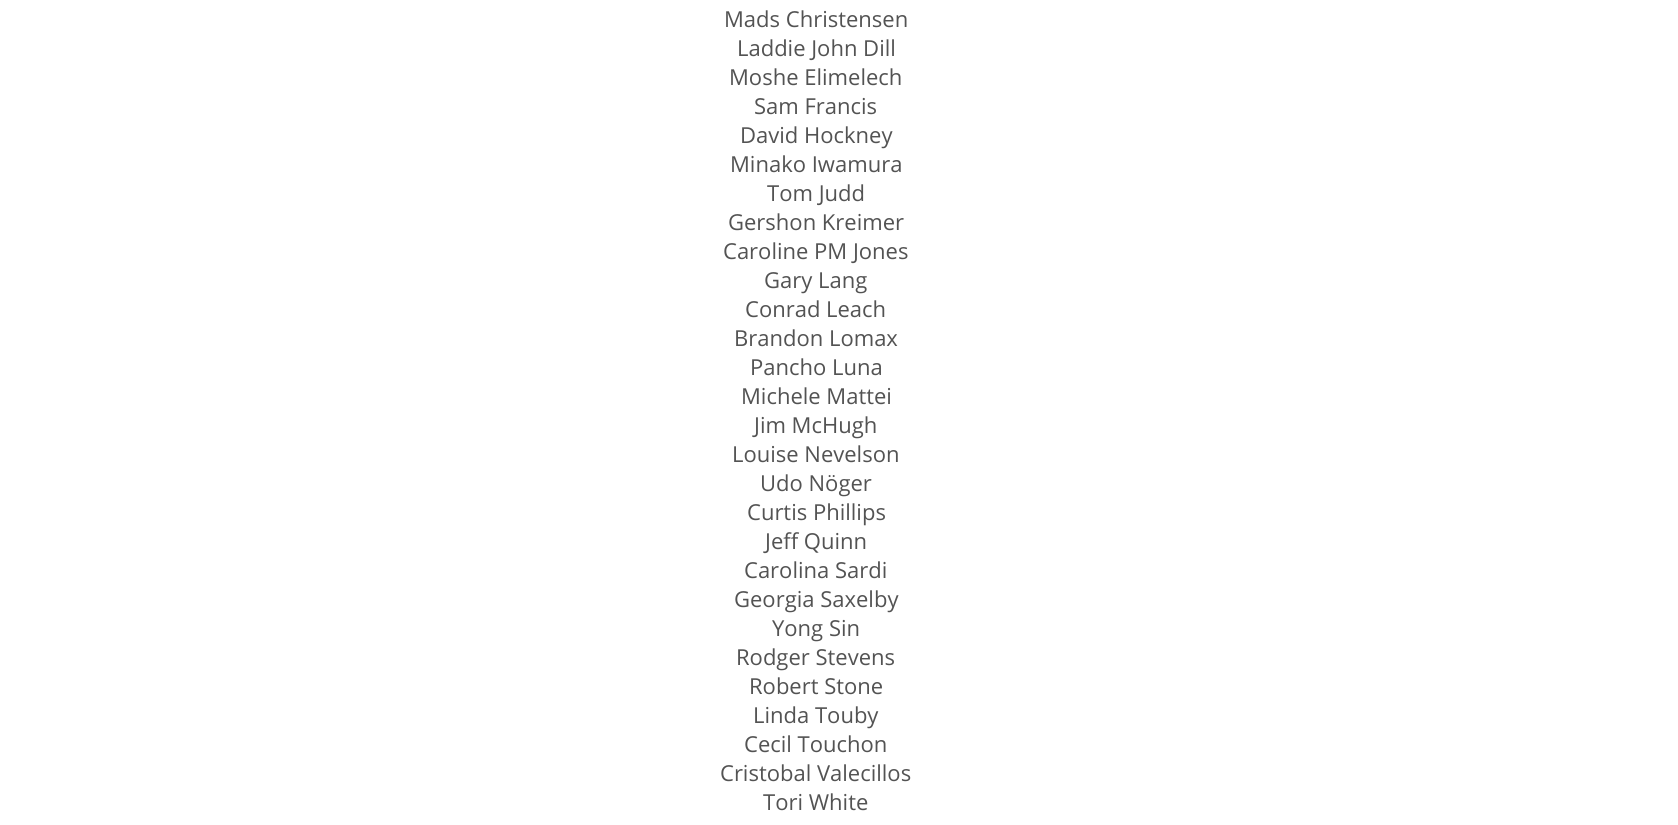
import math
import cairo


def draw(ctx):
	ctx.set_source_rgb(1, 1, 1)
	ctx.paint()
	ctx.select_font_face('Open Sans')
	ctx.set_font_size(22)
	ctx.set_source_rgb(0.325, 0.325, 0.325)
	for x, y, s in [
		(724, 27, 'Mads Christensen'),
		(737, 56, 'Laddie John Dill'),
		(729, 85, 'Moshe Elimelech'),
		(754, 114, 'Sam Francis'),
		(740, 143, 'David Hockney'),
		(730, 172, 'Minako Iwamura'),
		(767, 201, 'Tom Judd'),
		(728, 230, 'Gershon Kreimer'),
		(723, 259, 'Caroline PM Jones'),
		(764, 288, 'Gary Lang'),
		(745, 317, 'Conrad Leach'),
		(734, 346, 'Brandon Lomax'),
		(750, 375, 'Pancho Luna'),
		(741, 404, 'Michele Mattei'),
		(754, 433, 'Jim McHugh'),
		(732, 462, 'Louise Nevelson'),
		(760, 491, 'Udo Nöger'),
		(747, 520, 'Curtis Phillips'),
		(765, 549, 'Jeff Quinn'),
		(744, 578, 'Carolina Sardi'),
		(734, 607, 'Georgia Saxelby'),
		(772, 636, 'Yong Sin'),
		(736, 665, 'Rodger Stevens'),
		(749, 694, 'Robert Stone'),
		(753, 723, 'Linda Touby'),
		(744, 752, 'Cecil Touchon'),
		(720, 781, 'Cristobal Valecillos'),
		(763, 810, 'Tori White'),
	]:
		ctx.move_to(x, y)
		ctx.show_text(s)


surface = cairo.ImageSurface(cairo.FORMAT_RGB24, 1678, 825)
ctx = cairo.Context(surface)
options = cairo.FontOptions()
options.set_hint_metrics(cairo.HINT_METRICS_OFF)
options.set_hint_style(cairo.HINT_STYLE_NONE)
ctx.set_font_options(options)
ctx.set_miter_limit(4)
draw(ctx)
surface.write_to_png('image.png')
